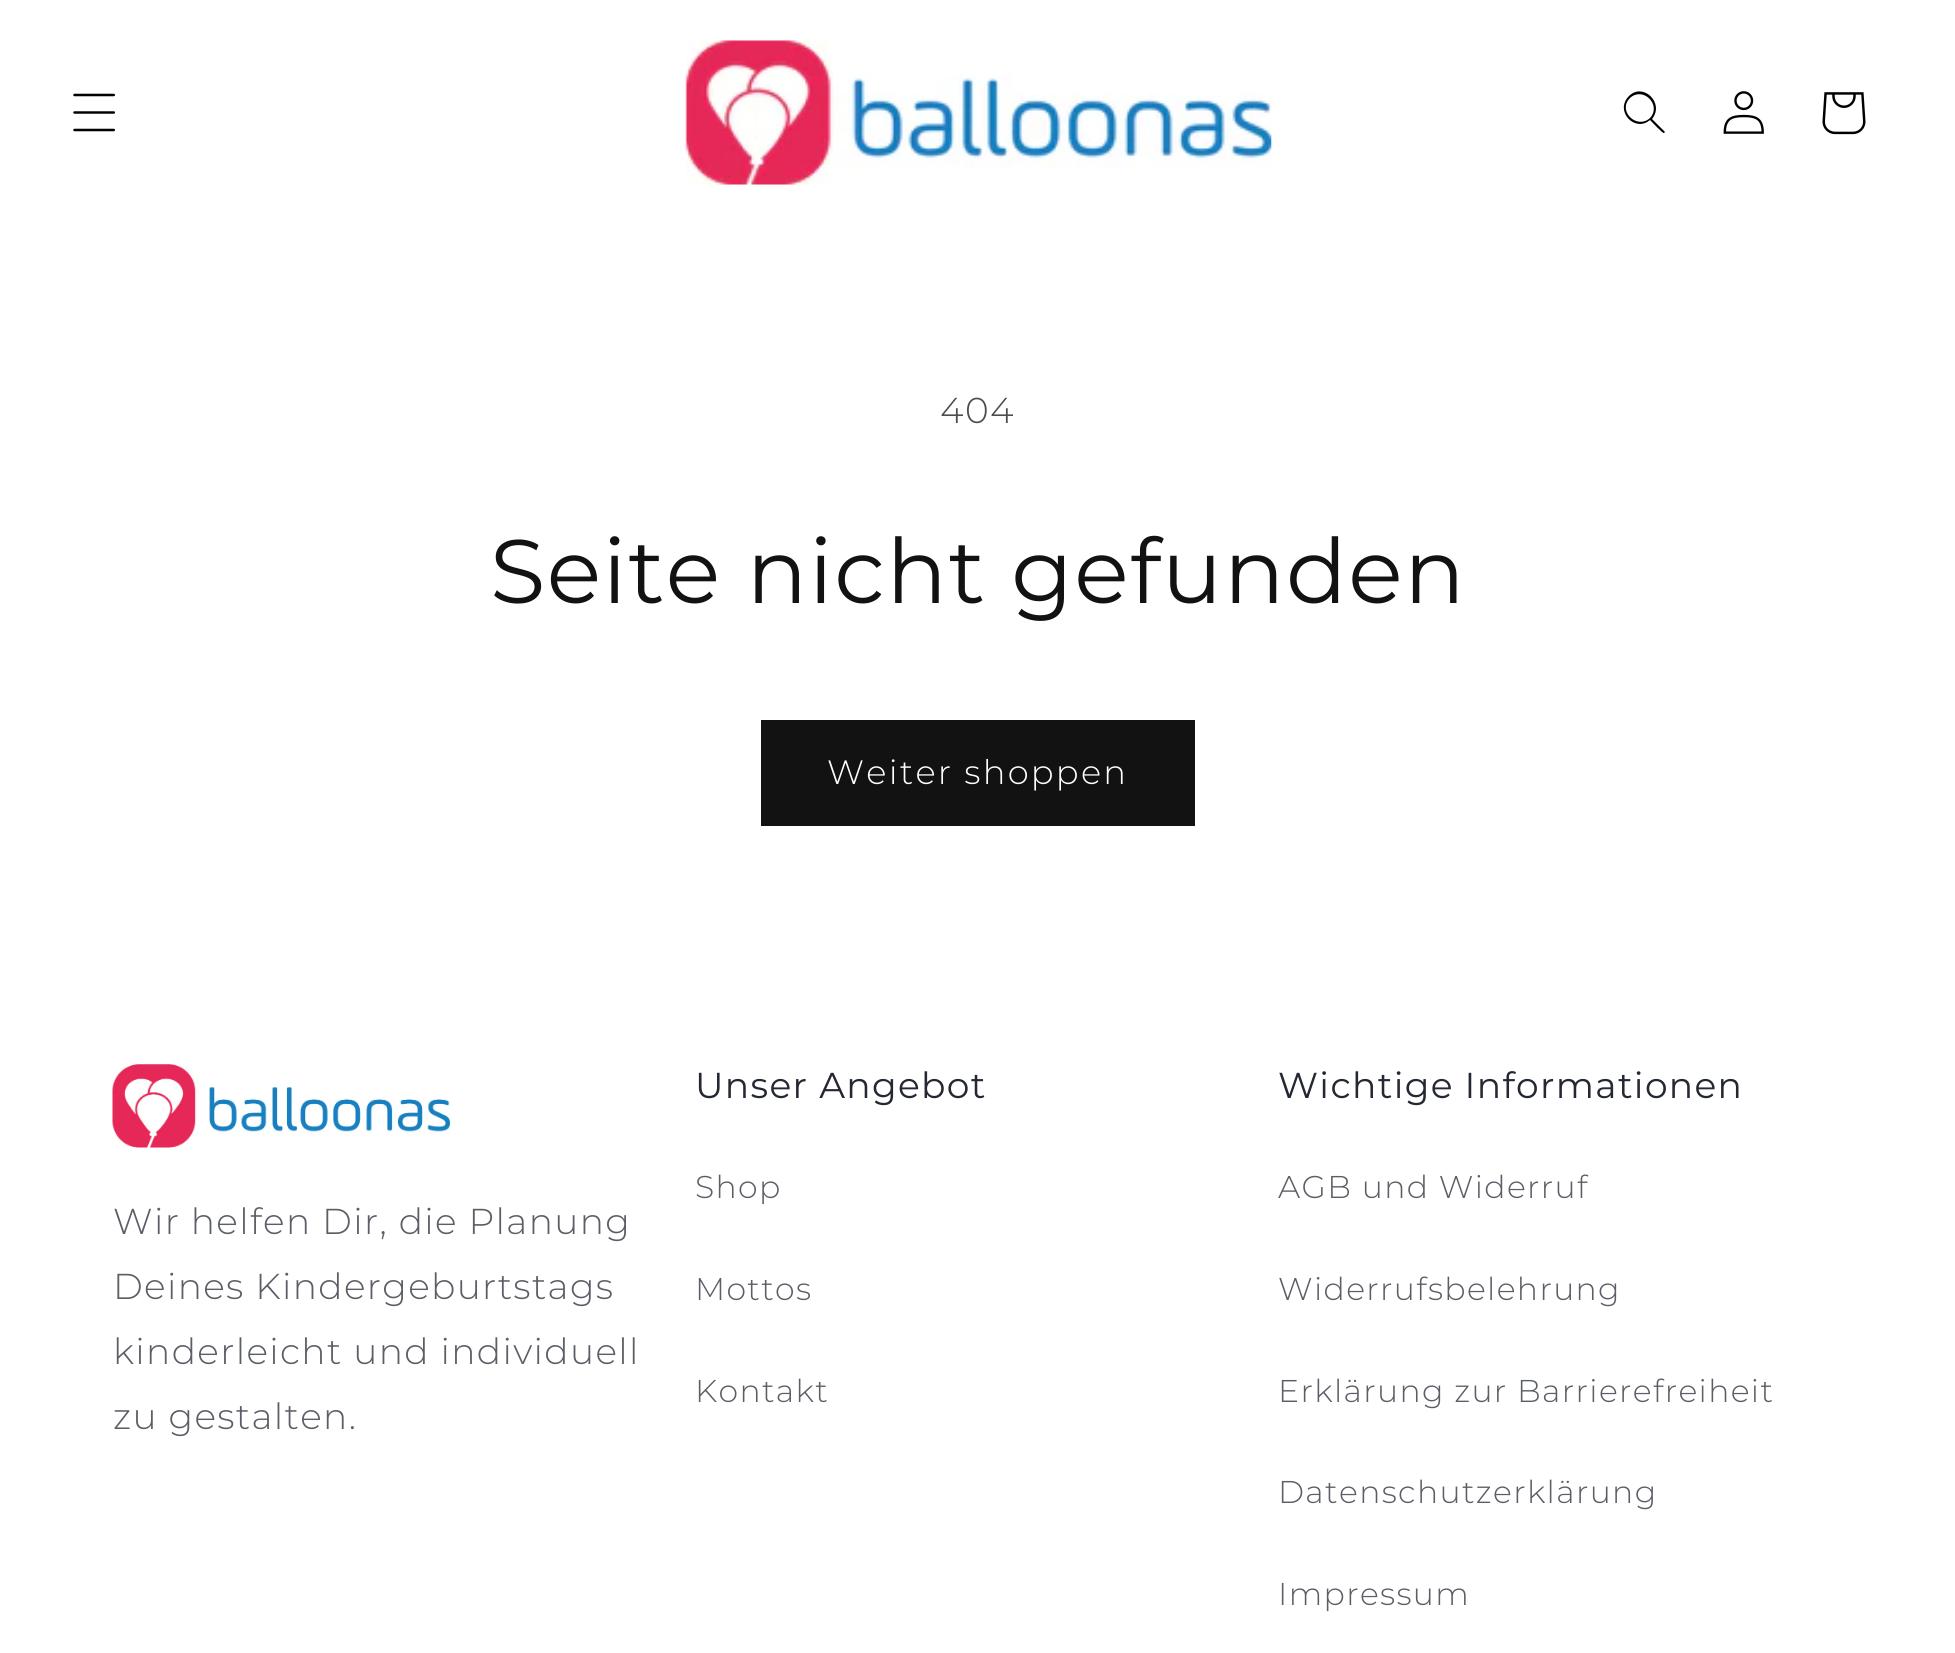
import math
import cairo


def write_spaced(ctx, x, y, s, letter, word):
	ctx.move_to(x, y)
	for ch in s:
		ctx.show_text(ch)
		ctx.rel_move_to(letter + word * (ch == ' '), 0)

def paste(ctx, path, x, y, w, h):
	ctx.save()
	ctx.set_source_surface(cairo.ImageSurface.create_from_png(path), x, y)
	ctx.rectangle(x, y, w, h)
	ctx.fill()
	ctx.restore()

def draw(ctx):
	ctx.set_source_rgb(1, 1, 1)
	ctx.paint()
	paste(ctx, 'media/1.png', 73, 93, 42, 39)
	paste(ctx, 'media/2.png', 685, 40, 587, 145)
	ctx.set_source_rgb(0, 0, 0)
	ctx.set_fill_rule(cairo.FILL_RULE_EVEN_ODD)
	ctx.new_path()
	ctx.move_to(1650, 118)
	ctx.curve_to(1637, 130, 1617, 111, 1630, 98)
	ctx.curve_to(1643, 86, 1662, 105, 1650, 118)
	ctx.close_path()
	ctx.move_to(1650, 120)
	ctx.curve_to(1635, 133, 1614, 111, 1629, 96)
	ctx.curve_to(1643, 82, 1665, 103, 1652, 119)
	ctx.line_to(1665, 132)
	ctx.line_to(1664, 133)
	ctx.curve_to(1663, 134, 1652, 122, 1650, 120)
	ctx.close_path()
	ctx.fill()
	paste(ctx, 'media/3.png', 1723, 91, 41, 43)
	paste(ctx, 'media/4.png', 1822, 92, 44, 43)
	ctx.select_font_face('Montserrat Light')
	ctx.set_font_size(36)
	ctx.set_source_rgb(0.302, 0.302, 0.302)
	write_spaced(ctx, 940, 423, '404', 1.35, 0)
	ctx.select_font_face('Montserrat')
	ctx.set_font_size(90)
	ctx.set_source_rgb(0.071, 0.071, 0.071)
	write_spaced(ctx, 490, 603, 'Seite nicht gefunden', 1.35, 0)
	ctx.rectangle(761, 720, 434, 106)
	ctx.fill()
	ctx.select_font_face('Montserrat Light')
	ctx.set_font_size(33.75)
	ctx.set_source_rgb(1, 1, 1)
	write_spaced(ctx, 827, 784, 'Weiter shoppen', 2.25, 0)
	paste(ctx, 'media/5.png', 112, 1064, 338, 84)
	ctx.set_font_size(36)
	ctx.set_source_rgb(0.357, 0.369, 0.4)
	for x, y, s in [
		(113, 1234, 'Wir helfen Dir, die Planung'),
		(113, 1299, 'Deines Kindergeburtstags'),
		(113, 1364, 'kinderleicht und individuell'),
		(113, 1429, 'zu gestalten.'),
	]:
		write_spaced(ctx, x, y, s, 1.35, 0)
	ctx.select_font_face('Montserrat')
	ctx.set_source_rgb(0.141, 0.157, 0.2)
	write_spaced(ctx, 695, 1098, 'Unser Angebot', 1.35, 0)
	ctx.select_font_face('Montserrat Light')
	ctx.set_font_size(31.5)
	ctx.set_source_rgb(0.357, 0.369, 0.4)
	for x, y, s in [
		(695, 1198, 'Shop'),
		(695, 1300, 'Mottos'),
		(695, 1402, 'Kontakt'),
	]:
		write_spaced(ctx, x, y, s, 1.35, 0)
	ctx.select_font_face('Montserrat')
	ctx.set_font_size(36)
	ctx.set_source_rgb(0.141, 0.157, 0.2)
	write_spaced(ctx, 1278, 1098, 'Wichtige Informationen', 1.35, 0)
	ctx.select_font_face('Montserrat Light')
	ctx.set_font_size(31.5)
	ctx.set_source_rgb(0.357, 0.369, 0.4)
	for x, y, s in [
		(1278, 1198, 'AGB und Widerruf'),
		(1278, 1300, 'Widerrufsbelehrung'),
		(1278, 1402, 'Erklärung zur Barrierefreiheit'),
		(1278, 1503, 'Datenschutzerklärung'),
		(1278, 1605, 'Impressum'),
	]:
		write_spaced(ctx, x, y, s, 1.35, 0)


surface = cairo.ImageSurface(cairo.FORMAT_RGB24, 1955, 1653)
ctx = cairo.Context(surface)
options = cairo.FontOptions()
options.set_hint_metrics(cairo.HINT_METRICS_OFF)
options.set_hint_style(cairo.HINT_STYLE_NONE)
ctx.set_font_options(options)
ctx.set_miter_limit(4)
draw(ctx)
surface.write_to_png('image.png')
